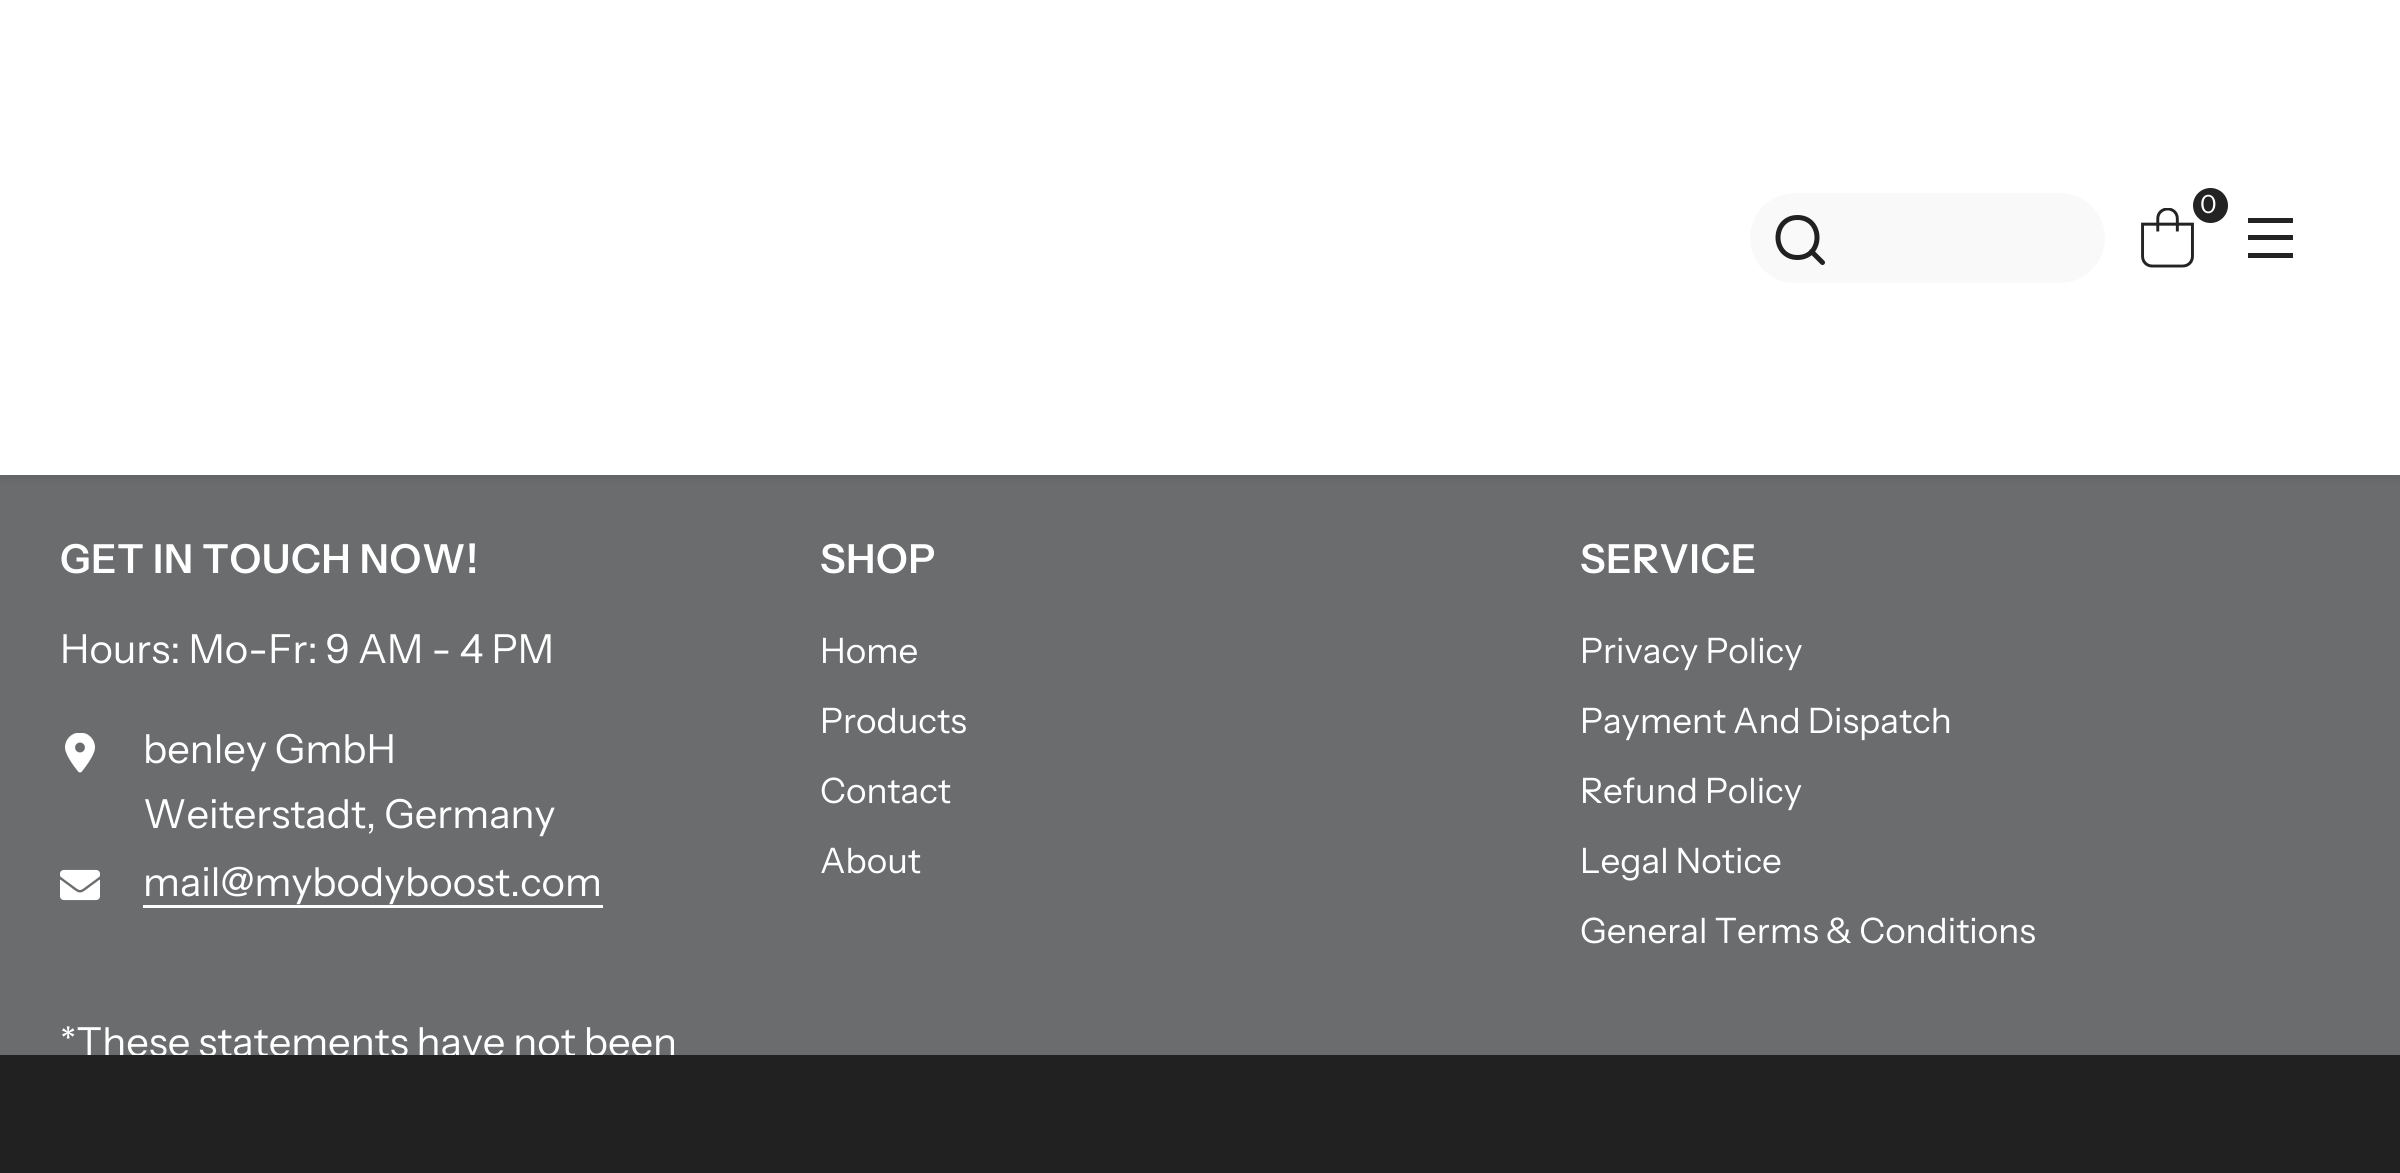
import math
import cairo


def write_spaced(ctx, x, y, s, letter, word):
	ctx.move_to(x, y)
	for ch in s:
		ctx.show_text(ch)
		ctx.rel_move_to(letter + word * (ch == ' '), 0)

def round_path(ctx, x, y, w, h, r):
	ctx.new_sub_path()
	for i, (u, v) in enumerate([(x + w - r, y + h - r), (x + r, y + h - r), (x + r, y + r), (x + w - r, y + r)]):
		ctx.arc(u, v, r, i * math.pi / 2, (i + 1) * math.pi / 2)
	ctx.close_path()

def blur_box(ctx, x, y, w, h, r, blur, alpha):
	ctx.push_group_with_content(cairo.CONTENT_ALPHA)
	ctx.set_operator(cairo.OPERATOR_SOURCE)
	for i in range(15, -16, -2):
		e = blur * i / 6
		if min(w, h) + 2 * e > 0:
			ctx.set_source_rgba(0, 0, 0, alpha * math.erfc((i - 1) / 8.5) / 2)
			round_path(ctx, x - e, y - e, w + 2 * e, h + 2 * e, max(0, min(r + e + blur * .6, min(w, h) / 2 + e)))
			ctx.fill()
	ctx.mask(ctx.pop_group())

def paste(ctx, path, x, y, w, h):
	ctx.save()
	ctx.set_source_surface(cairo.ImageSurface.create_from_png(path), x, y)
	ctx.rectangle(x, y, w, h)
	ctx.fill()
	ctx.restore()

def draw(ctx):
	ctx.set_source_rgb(0.416, 0.424, 0.427)
	ctx.paint()
	ctx.set_source_rgb(0, 0, 0)
	blur_box(ctx, 0, 3, 2400, 475, 0, 4, 0.1)
	ctx.set_source_rgb(1, 1, 1)
	ctx.rectangle(0, 0, 2400, 475)
	ctx.fill()
	ctx.set_source_rgb(0.973, 0.973, 0.973)
	round_path(ctx, 1750, 193, 355, 90, 45)
	ctx.fill()
	ctx.new_path()
	ctx.move_to(1797.5, 257.5)
	ctx.curve_to(1823.5, 257.5, 1823.5, 217.5, 1797.5, 217.5)
	ctx.curve_to(1771.5, 217.5, 1771.5, 257.5, 1797.5, 257.5)
	ctx.close_path()
	ctx.move_to(1822.5, 262.5)
	ctx.line_to(1811.5, 251.5)
	ctx.set_source_rgb(0.129, 0.129, 0.129)
	ctx.set_line_width(5)
	ctx.set_line_cap(cairo.LINE_CAP_ROUND)
	ctx.set_line_join(cairo.LINE_JOIN_ROUND)
	ctx.stroke()
	paste(ctx, 'media/1.png', 2141, 208, 53, 60)
	ctx.set_source_rgb(0.137, 0.137, 0.137)
	ctx.arc(2210.5, 205.5, 17.5, 0, 2 * math.pi)
	ctx.fill()
	ctx.select_font_face('Instrument Sans')
	ctx.set_font_size(25)
	ctx.set_source_rgb(1, 1, 1)
	ctx.move_to(2200, 213)
	ctx.show_text('0')
	ctx.set_source_rgb(0.137, 0.137, 0.137)
	ctx.rectangle(2248, 235, 45, 5)
	ctx.rectangle(2248, 218, 45, 5)
	ctx.rectangle(2248, 253, 45, 5)
	ctx.fill()
	ctx.select_font_face('Instrument Sans SemiBold')
	ctx.set_font_size(40)
	ctx.set_source_rgb(1, 1, 1)
	write_spaced(ctx, 60, 573, 'GET IN TOUCH NOW!', 0.75, 0)
	ctx.select_font_face('Instrument Sans')
	ctx.move_to(60, 663)
	ctx.show_text('Hours: Mo-Fr: 9 AM - 4 PM')
	paste(ctx, 'media/2.png', 64, 733, 32, 40)
	ctx.move_to(143, 763)
	ctx.show_text('benley GmbH')
	ctx.move_to(143, 828)
	ctx.show_text('Weiterstadt, Germany')
	paste(ctx, 'media/3.png', 60, 869, 40, 32)
	ctx.move_to(143, 896)
	ctx.show_text('mail@mybodyboost.com')
	ctx.rectangle(143, 905, 460, 3)
	ctx.fill()
	ctx.select_font_face('Instrument Sans SemiBold')
	write_spaced(ctx, 820, 573, 'SHOP', 0.75, 0)
	ctx.select_font_face('Instrument Sans')
	ctx.set_font_size(35)
	for x, y, s in [
		(820, 663, 'Home'),
		(820, 733, 'Products'),
		(820, 803, 'Contact'),
		(820, 873, 'About'),
	]:
		ctx.move_to(x, y)
		ctx.show_text(s)
	ctx.select_font_face('Instrument Sans SemiBold')
	ctx.set_font_size(40)
	write_spaced(ctx, 1580, 573, 'SERVICE', 0.75, 0)
	ctx.select_font_face('Instrument Sans')
	ctx.set_font_size(35)
	for x, y, s in [
		(1580, 663, 'Privacy Policy'),
		(1580, 733, 'Payment And Dispatch'),
		(1580, 803, 'Refund Policy'),
		(1580, 873, 'Legal Notice'),
		(1580, 943, 'General Terms & Conditions'),
	]:
		ctx.move_to(x, y)
		ctx.show_text(s)
	ctx.set_font_size(40)
	ctx.move_to(60, 1056)
	ctx.show_text('*These statements have not been')
	ctx.set_source_rgb(0.129, 0.129, 0.129)
	ctx.rectangle(0, 1055, 2400, 118)
	ctx.fill()


surface = cairo.ImageSurface(cairo.FORMAT_RGB24, 2400, 1173)
ctx = cairo.Context(surface)
options = cairo.FontOptions()
options.set_hint_metrics(cairo.HINT_METRICS_OFF)
options.set_hint_style(cairo.HINT_STYLE_NONE)
ctx.set_font_options(options)
ctx.set_miter_limit(4)
draw(ctx)
surface.write_to_png('image.png')
